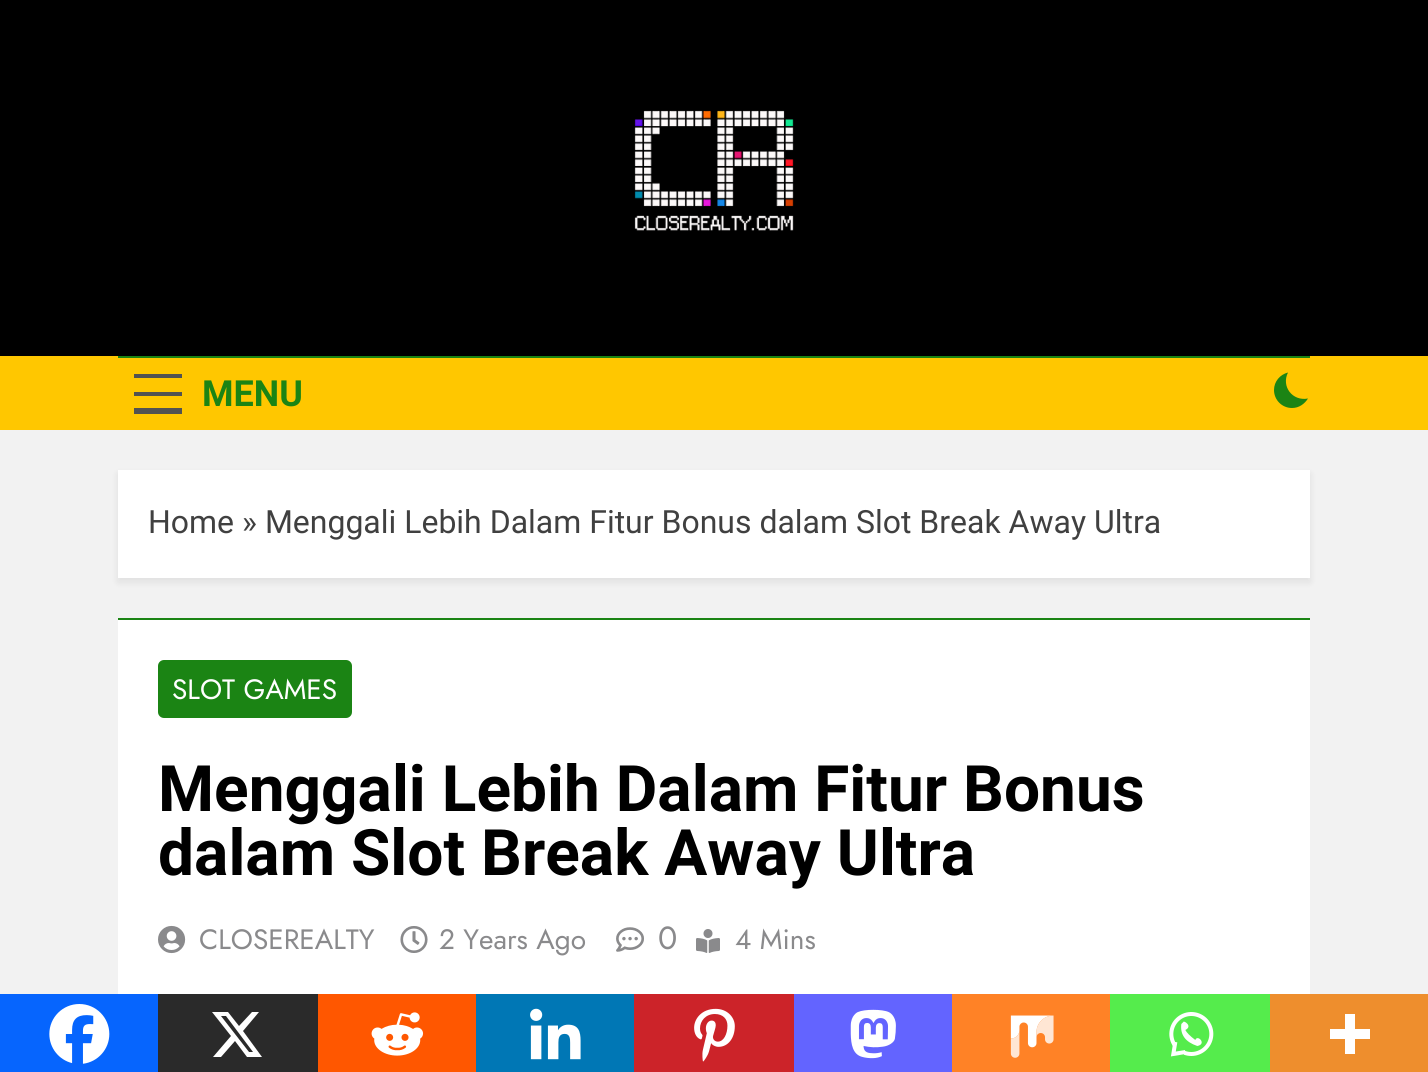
import math
import cairo


def round_path(ctx, x, y, w, h, r):
	ctx.new_sub_path()
	for i, (u, v) in enumerate([(x + w - r, y + h - r), (x + r, y + h - r), (x + r, y + r), (x + w - r, y + r)]):
		ctx.arc(u, v, r, i * math.pi / 2, (i + 1) * math.pi / 2)
	ctx.close_path()

def blur_box(ctx, x, y, w, h, r, blur, alpha):
	ctx.push_group_with_content(cairo.CONTENT_ALPHA)
	ctx.set_operator(cairo.OPERATOR_SOURCE)
	for i in range(15, -16, -2):
		e = blur * i / 6
		if min(w, h) + 2 * e > 0:
			ctx.set_source_rgba(0, 0, 0, alpha * math.erfc((i - 1) / 8.5) / 2)
			round_path(ctx, x - e, y - e, w + 2 * e, h + 2 * e, max(0, min(r + e + blur * .6, min(w, h) / 2 + e)))
			ctx.fill()
	ctx.mask(ctx.pop_group())

def paste(ctx, path, x, y, w, h):
	ctx.save()
	ctx.set_source_surface(cairo.ImageSurface.create_from_png(path), x, y)
	ctx.rectangle(x, y, w, h)
	ctx.fill()
	ctx.restore()

def draw(ctx):
	ctx.set_source_rgb(0.949, 0.949, 0.949)
	ctx.paint()
	ctx.set_source_rgb(0, 0, 0)
	ctx.rectangle(0, 0, 1428, 356)
	ctx.fill()
	paste(ctx, 'media/1.png', 634, 110, 160, 121)
	ctx.set_source_rgb(1, 0.78, 0)
	ctx.rectangle(0, 356, 1428, 74)
	ctx.fill()
	ctx.set_source_rgb(0.106, 0.518, 0.082)
	ctx.rectangle(118, 356, 1192, 2)
	ctx.fill()
	ctx.set_source_rgb(0.322, 0.322, 0.322)
	ctx.rectangle(134, 374, 48, 4)
	ctx.rectangle(134, 392, 48, 4)
	ctx.rectangle(134, 408, 48, 6)
	ctx.fill()
	ctx.select_font_face('Roboto', cairo.FONT_SLANT_NORMAL, cairo.FONT_WEIGHT_BOLD)
	ctx.set_font_size(36)
	ctx.set_source_rgb(0.106, 0.518, 0.082)
	ctx.move_to(202, 406)
	ctx.show_text('MENU')
	ctx.new_path()
	ctx.move_to(1308, 398.5)
	ctx.curve_to(1292.5, 401.5, 1281, 386.5, 1288, 372.5)
	ctx.curve_to(1280, 374.5, 1274, 381.5, 1274, 390)
	ctx.curve_to(1274, 400, 1282, 408, 1292, 408)
	ctx.curve_to(1299, 408, 1304.5, 404, 1308, 398.5)
	ctx.close_path()
	ctx.fill()
	ctx.set_source_rgb(0, 0, 0)
	blur_box(ctx, 118, 474, 1192, 108, 0, 4, 0.08)
	ctx.set_source_rgb(1, 1, 1)
	ctx.rectangle(118, 470, 1192, 108)
	ctx.fill()
	ctx.select_font_face('Roboto')
	ctx.set_font_size(32)
	ctx.set_source_rgb(0.251, 0.251, 0.251)
	ctx.move_to(148, 533)
	ctx.show_text('Home » Menggali Lebih Dalam Fitur Bonus dalam Slot Break Away Ultra')
	ctx.set_source_rgb(1, 1, 1)
	ctx.rectangle(118, 620, 1192, 374)
	ctx.fill()
	ctx.set_source_rgb(0.106, 0.518, 0.082)
	ctx.rectangle(118, 618, 1192, 2)
	ctx.fill()
	round_path(ctx, 158, 660, 194, 58, 6)
	ctx.fill()
	ctx.select_font_face('Jost')
	ctx.set_font_size(28)
	ctx.set_source_rgb(1, 1, 1)
	ctx.move_to(172, 699)
	ctx.show_text('SLOT GAMES')
	ctx.select_font_face('Roboto', cairo.FONT_SLANT_NORMAL, cairo.FONT_WEIGHT_BOLD)
	ctx.set_font_size(64)
	ctx.set_source_rgb(0, 0, 0)
	ctx.move_to(158, 811)
	ctx.show_text('Menggali Lebih Dalam Fitur Bonus')
	ctx.move_to(158, 875)
	ctx.show_text('dalam Slot Break Away Ultra')
	paste(ctx, 'media/2.png', 158, 925, 28, 29)
	ctx.select_font_face('Jost')
	ctx.set_font_size(28)
	ctx.set_source_rgb(0.541, 0.541, 0.549)
	ctx.move_to(199, 949)
	ctx.show_text('CLOSEREALTY')
	paste(ctx, 'media/3.png', 400, 926, 28, 27)
	ctx.move_to(439, 949)
	ctx.show_text('2 Years Ago')
	paste(ctx, 'media/4.png', 616, 927, 28, 25)
	ctx.set_font_size(32)
	ctx.move_to(658, 949)
	ctx.show_text('0')
	paste(ctx, 'media/5.png', 696, 929, 24, 24)
	ctx.set_font_size(28)
	ctx.move_to(735, 949)
	ctx.show_text('4 Mins')
	ctx.set_source_rgb(0.027, 0.396, 0.996)
	ctx.rectangle(0, 994, 158, 78)
	ctx.fill()
	paste(ctx, 'media/6.png', 49, 1004, 61, 60)
	ctx.set_source_rgb(0.165, 0.165, 0.165)
	ctx.rectangle(158, 994, 160, 78)
	ctx.fill()
	ctx.set_source_rgb(1, 1, 1)
	ctx.new_path()
	ctx.move_to(252, 1012)
	ctx.line_to(259, 1012)
	ctx.line_to(243, 1031)
	ctx.line_to(262, 1057)
	ctx.line_to(247, 1057)
	ctx.line_to(235, 1041)
	ctx.line_to(221, 1057)
	ctx.line_to(213, 1057)
	ctx.line_to(231, 1036)
	ctx.line_to(212, 1012)
	ctx.line_to(228, 1012)
	ctx.line_to(239, 1026)
	ctx.close_path()
	ctx.move_to(249, 1052)
	ctx.line_to(253, 1052)
	ctx.line_to(226, 1016)
	ctx.line_to(221, 1016)
	ctx.close_path()
	ctx.fill()
	ctx.set_source_rgb(1, 0.341, 0)
	ctx.rectangle(318, 994, 158, 78)
	ctx.fill()
	paste(ctx, 'media/7.png', 371, 1012, 53, 44)
	ctx.set_source_rgb(0, 0.467, 0.71)
	ctx.rectangle(476, 994, 158, 78)
	ctx.fill()
	paste(ctx, 'media/8.png', 530, 1008, 51, 52)
	ctx.set_source_rgb(0.8, 0.137, 0.161)
	ctx.rectangle(634, 994, 160, 78)
	ctx.fill()
	paste(ctx, 'media/9.png', 694, 1008, 41, 54)
	ctx.set_source_rgb(0.388, 0.392, 1)
	ctx.rectangle(794, 994, 158, 78)
	ctx.fill()
	paste(ctx, 'media/10.png', 850, 1009, 46, 50)
	ctx.set_source_rgb(1, 0.51, 0.149)
	ctx.rectangle(952, 994, 158, 78)
	ctx.fill()
	paste(ctx, 'media/11.png', 1010, 1015, 44, 43)
	ctx.set_source_rgb(0.333, 0.922, 0.298)
	ctx.rectangle(1110, 994, 160, 78)
	ctx.fill()
	paste(ctx, 'media/12.png', 1169, 1012, 45, 45)
	ctx.set_source_rgb(0.933, 0.557, 0.176)
	ctx.rectangle(1270, 994, 158, 78)
	ctx.fill()
	ctx.set_source_rgb(1, 1, 1)
	ctx.set_fill_rule(cairo.FILL_RULE_EVEN_ODD)
	ctx.new_path()
	ctx.move_to(1355, 1029)
	ctx.line_to(1355, 1014)
	ctx.line_to(1345, 1014)
	ctx.line_to(1345, 1029)
	ctx.line_to(1330, 1029)
	ctx.line_to(1330, 1039)
	ctx.line_to(1345, 1039)
	ctx.line_to(1345, 1054)
	ctx.line_to(1355, 1054)
	ctx.line_to(1355, 1039)
	ctx.line_to(1370, 1039)
	ctx.line_to(1370, 1029)
	ctx.close_path()
	ctx.fill()


surface = cairo.ImageSurface(cairo.FORMAT_RGB24, 1428, 1072)
ctx = cairo.Context(surface)
options = cairo.FontOptions()
options.set_hint_metrics(cairo.HINT_METRICS_OFF)
options.set_hint_style(cairo.HINT_STYLE_NONE)
ctx.set_font_options(options)
ctx.set_miter_limit(4)
draw(ctx)
surface.write_to_png('image.png')
